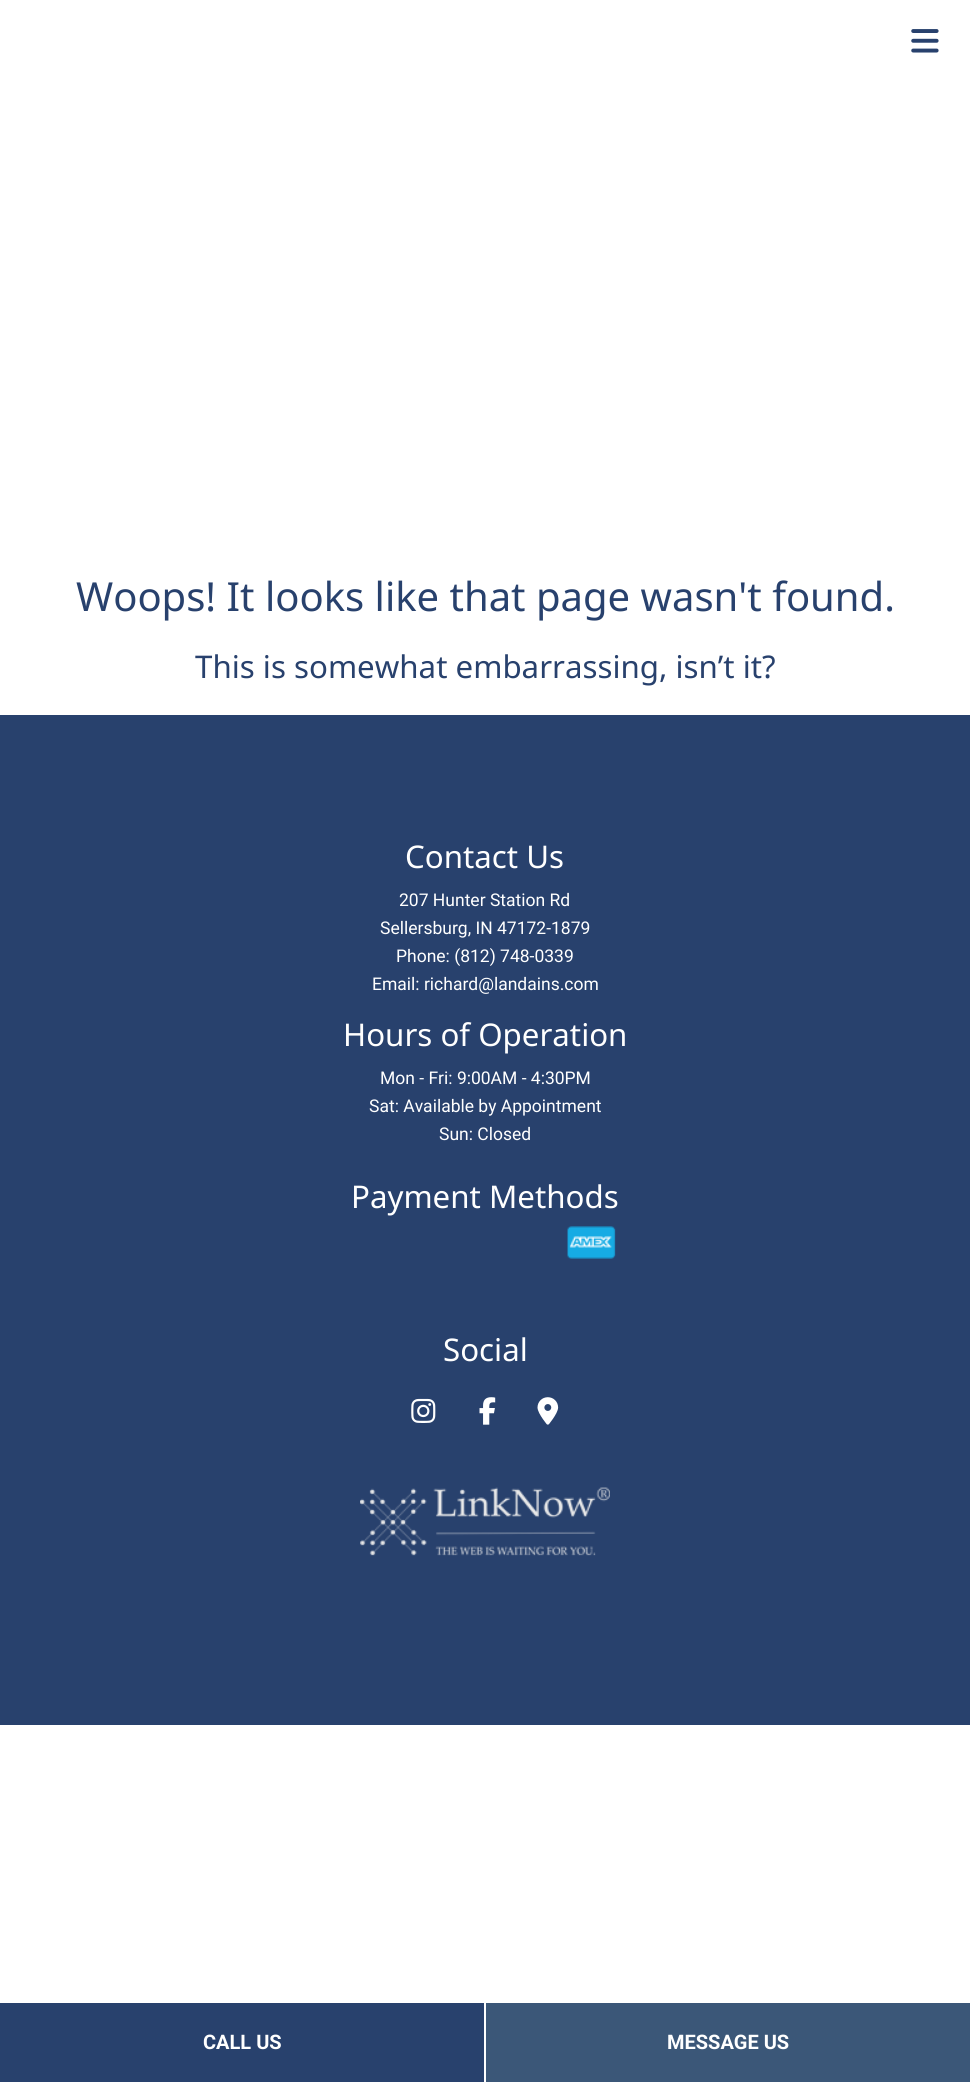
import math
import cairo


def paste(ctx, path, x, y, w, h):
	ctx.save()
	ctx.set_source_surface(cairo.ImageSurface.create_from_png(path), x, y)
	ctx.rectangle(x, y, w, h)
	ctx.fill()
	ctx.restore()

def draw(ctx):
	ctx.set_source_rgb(1, 1, 1)
	ctx.paint()
	paste(ctx, 'media/1.png', 911, 29, 28, 24)
	ctx.select_font_face('Noto Sans')
	ctx.set_font_size(40)
	ctx.set_source_rgb(0.157, 0.255, 0.427)
	ctx.move_to(76, 611)
	ctx.show_text('Woops! It looks like that page wasn\'t found.')
	ctx.set_font_size(31.25)
	ctx.move_to(195, 678)
	ctx.show_text('This is somewhat embarrassing, isn’t it?')
	ctx.rectangle(0, 715, 970, 1010)
	ctx.fill()
	ctx.set_source_rgb(1, 1, 1)
	ctx.move_to(405, 868)
	ctx.show_text('Contact Us')
	ctx.select_font_face('Roboto')
	ctx.set_font_size(17.5)
	for x, y, s in [
		(399, 906, '207 Hunter Station Rd'),
		(380, 934, 'Sellersburg, IN 47172-1879'),
		(396, 962, 'Phone: (812) 748-0339'),
		(372, 990, 'Email: richard@landains.com'),
	]:
		ctx.move_to(x, y)
		ctx.show_text(s)
	ctx.select_font_face('Noto Sans')
	ctx.set_font_size(31.25)
	ctx.move_to(343, 1046)
	ctx.show_text('Hours of Operation')
	ctx.select_font_face('Roboto')
	ctx.set_font_size(17.5)
	for x, y, s in [
		(380, 1084, 'Mon - Fri: 9:00AM - 4:30PM'),
		(369, 1112, 'Sat: Available by Appointment'),
		(439, 1140, 'Sun: Closed'),
	]:
		ctx.move_to(x, y)
		ctx.show_text(s)
	ctx.select_font_face('Noto Sans')
	ctx.set_font_size(31.25)
	ctx.move_to(351, 1208)
	ctx.show_text('Payment Methods')
	paste(ctx, 'media/2.png', 567, 1226, 49, 33)
	ctx.move_to(443, 1361)
	ctx.show_text('Social')
	paste(ctx, 'media/3.png', 411, 1398, 25, 25)
	paste(ctx, 'media/4.png', 479, 1397, 17, 28)
	paste(ctx, 'media/5.png', 537, 1397, 22, 28)
	paste(ctx, 'media/6.png', 360, 1487, 250, 69)
	ctx.set_source_rgb(0.157, 0.255, 0.427)
	ctx.rectangle(0, 2003, 484, 79)
	ctx.fill()
	ctx.select_font_face('Roboto', cairo.FONT_SLANT_NORMAL, cairo.FONT_WEIGHT_BOLD)
	ctx.set_font_size(20)
	ctx.set_source_rgb(1, 1, 1)
	ctx.move_to(203, 2049)
	ctx.show_text('CALL US')
	ctx.set_source_rgb(0.231, 0.341, 0.471)
	ctx.rectangle(486, 2003, 484, 79)
	ctx.fill()
	ctx.set_source_rgb(1, 1, 1)
	ctx.move_to(667, 2049)
	ctx.show_text('MESSAGE US')


surface = cairo.ImageSurface(cairo.FORMAT_RGB24, 970, 2082)
ctx = cairo.Context(surface)
options = cairo.FontOptions()
options.set_hint_metrics(cairo.HINT_METRICS_OFF)
options.set_hint_style(cairo.HINT_STYLE_NONE)
ctx.set_font_options(options)
ctx.set_miter_limit(4)
draw(ctx)
surface.write_to_png('image.png')
